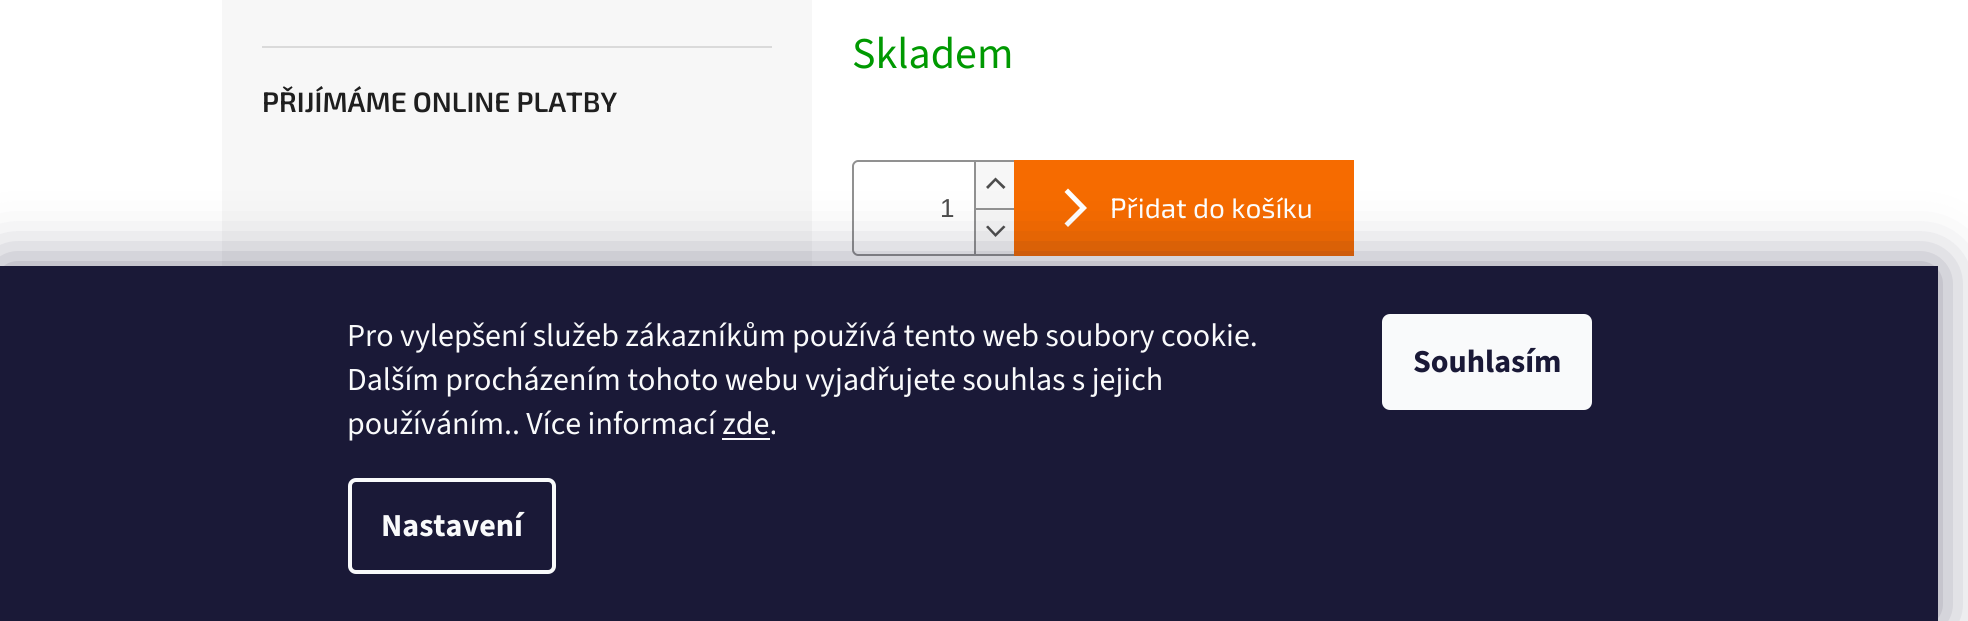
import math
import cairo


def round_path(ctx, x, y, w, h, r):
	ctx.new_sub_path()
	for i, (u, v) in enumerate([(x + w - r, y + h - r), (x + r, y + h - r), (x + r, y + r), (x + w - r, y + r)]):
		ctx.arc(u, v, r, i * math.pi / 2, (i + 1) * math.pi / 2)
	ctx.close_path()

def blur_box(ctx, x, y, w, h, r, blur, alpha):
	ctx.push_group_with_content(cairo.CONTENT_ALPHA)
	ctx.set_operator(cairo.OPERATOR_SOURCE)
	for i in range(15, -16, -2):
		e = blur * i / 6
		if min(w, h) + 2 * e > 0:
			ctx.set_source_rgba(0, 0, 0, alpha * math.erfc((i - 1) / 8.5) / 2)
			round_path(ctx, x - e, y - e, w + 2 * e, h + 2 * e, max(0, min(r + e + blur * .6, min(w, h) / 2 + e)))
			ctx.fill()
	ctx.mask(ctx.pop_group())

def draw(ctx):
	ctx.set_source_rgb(1, 1, 1)
	ctx.paint()
	ctx.set_source_rgb(0.965, 0.965, 0.965)
	ctx.rectangle(222, 0, 590, 266)
	ctx.fill()
	ctx.set_source_rgb(0.855, 0.855, 0.855)
	ctx.rectangle(262, 46, 510, 2)
	ctx.fill()
	ctx.select_font_face('Exo 2 SemiBold')
	ctx.set_font_size(28)
	ctx.set_source_rgb(0.122, 0.122, 0.122)
	ctx.move_to(262, 112)
	ctx.show_text('PŘIJÍMÁME ONLINE PLATBY')
	ctx.select_font_face('Source Sans 3')
	ctx.set_font_size(44)
	ctx.set_source_rgb(0, 0.6, 0.004)
	ctx.move_to(852, 68)
	ctx.show_text('Skladem')
	ctx.set_source_rgb(0.569, 0.569, 0.569)
	ctx.set_fill_rule(cairo.FILL_RULE_EVEN_ODD)
	ctx.new_path()
	ctx.move_to(858, 160)
	ctx.line_to(1014, 160)
	ctx.line_to(1014, 256)
	ctx.line_to(858, 256)
	ctx.curve_to(855, 256, 852, 253, 852, 250)
	ctx.line_to(852, 166)
	ctx.curve_to(852, 163, 855, 160, 858, 160)
	ctx.close_path()
	ctx.move_to(858, 162)
	ctx.line_to(1014, 162)
	ctx.line_to(1014, 254)
	ctx.line_to(858, 254)
	ctx.curve_to(856, 254, 854, 252, 854, 250)
	ctx.line_to(854, 166)
	ctx.curve_to(854, 164, 856, 162, 858, 162)
	ctx.close_path()
	ctx.fill()
	ctx.select_font_face('Liberation Sans')
	ctx.set_font_size(26)
	ctx.set_source_rgb(0.302, 0.302, 0.302)
	ctx.move_to(940, 217)
	ctx.show_text('1')
	ctx.set_source_rgb(0.965, 0.965, 0.965)
	ctx.rectangle(976, 162, 38, 46)
	ctx.fill()
	ctx.set_source_rgb(0.569, 0.569, 0.569)
	ctx.rectangle(974, 162, 2, 46)
	ctx.fill()
	ctx.set_source_rgb(0.302, 0.302, 0.302)
	ctx.set_fill_rule(cairo.FILL_RULE_WINDING)
	ctx.new_path()
	ctx.move_to(986, 187)
	ctx.line_to(988, 189)
	ctx.line_to(995.5, 181)
	ctx.line_to(1003.5, 189)
	ctx.line_to(1005.5, 187)
	ctx.line_to(995.5, 177.5)
	ctx.close_path()
	ctx.fill()
	ctx.set_source_rgb(0.965, 0.965, 0.965)
	ctx.rectangle(976, 210, 38, 44)
	ctx.fill()
	ctx.set_source_rgb(0.569, 0.569, 0.569)
	ctx.rectangle(974, 208, 40, 2)
	ctx.rectangle(974, 208, 2, 46)
	ctx.fill()
	ctx.set_source_rgb(0.302, 0.302, 0.302)
	ctx.new_path()
	ctx.move_to(986, 227)
	ctx.line_to(988, 225.5)
	ctx.line_to(995.5, 233.5)
	ctx.line_to(1003.5, 225.5)
	ctx.line_to(1005.5, 227)
	ctx.line_to(995.5, 237)
	ctx.close_path()
	ctx.fill()
	ctx.set_source_rgb(0.961, 0.42, 0)
	ctx.rectangle(1014, 160, 340, 96)
	ctx.fill()
	ctx.set_source_rgb(1, 1, 1)
	ctx.new_path()
	ctx.move_to(1068, 227)
	ctx.line_to(1064.5, 223.5)
	ctx.line_to(1080, 208)
	ctx.line_to(1064.5, 192)
	ctx.line_to(1068, 188.5)
	ctx.line_to(1087, 208)
	ctx.close_path()
	ctx.fill()
	ctx.select_font_face('Exo 2')
	ctx.set_font_size(28)
	ctx.move_to(1110, 218)
	ctx.show_text('Přidat do košíku')
	ctx.set_source_rgb(0.106, 0.098, 0.224)
	blur_box(ctx, 0, 266, 1938, 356, 0, 30, 0.5)
	ctx.set_source_rgb(0.102, 0.098, 0.216)
	ctx.rectangle(0, 266, 1938, 355)
	ctx.fill()
	ctx.select_font_face('Source Sans 3')
	ctx.set_font_size(32)
	ctx.set_source_rgb(0.973, 0.98, 0.984)
	for x, y, s in [
		(347, 346, 'Pro vylepšení služeb zákazníkům používá tento web soubory cookie.'),
		(347, 390, 'Dalším procházením tohoto webu vyjadřujete souhlas s jejich'),
		(347, 434, 'používáním.. Více informací zde.'),
	]:
		ctx.move_to(x, y)
		ctx.show_text(s)
	ctx.rectangle(722, 438, 48, 2)
	ctx.fill()
	round_path(ctx, 350, 480, 204, 92, 6)
	ctx.set_line_width(4)
	ctx.stroke()
	ctx.select_font_face('Source Sans 3', cairo.FONT_SLANT_NORMAL, cairo.FONT_WEIGHT_BOLD)
	ctx.move_to(381, 536)
	ctx.show_text('Nastavení')
	round_path(ctx, 1382, 314, 210, 96, 8)
	ctx.fill()
	ctx.set_source_rgb(0.102, 0.098, 0.216)
	ctx.move_to(1413, 372)
	ctx.show_text('Souhlasím')


surface = cairo.ImageSurface(cairo.FORMAT_RGB24, 1968, 621)
ctx = cairo.Context(surface)
options = cairo.FontOptions()
options.set_hint_metrics(cairo.HINT_METRICS_OFF)
options.set_hint_style(cairo.HINT_STYLE_NONE)
ctx.set_font_options(options)
ctx.set_miter_limit(4)
draw(ctx)
surface.write_to_png('image.png')
